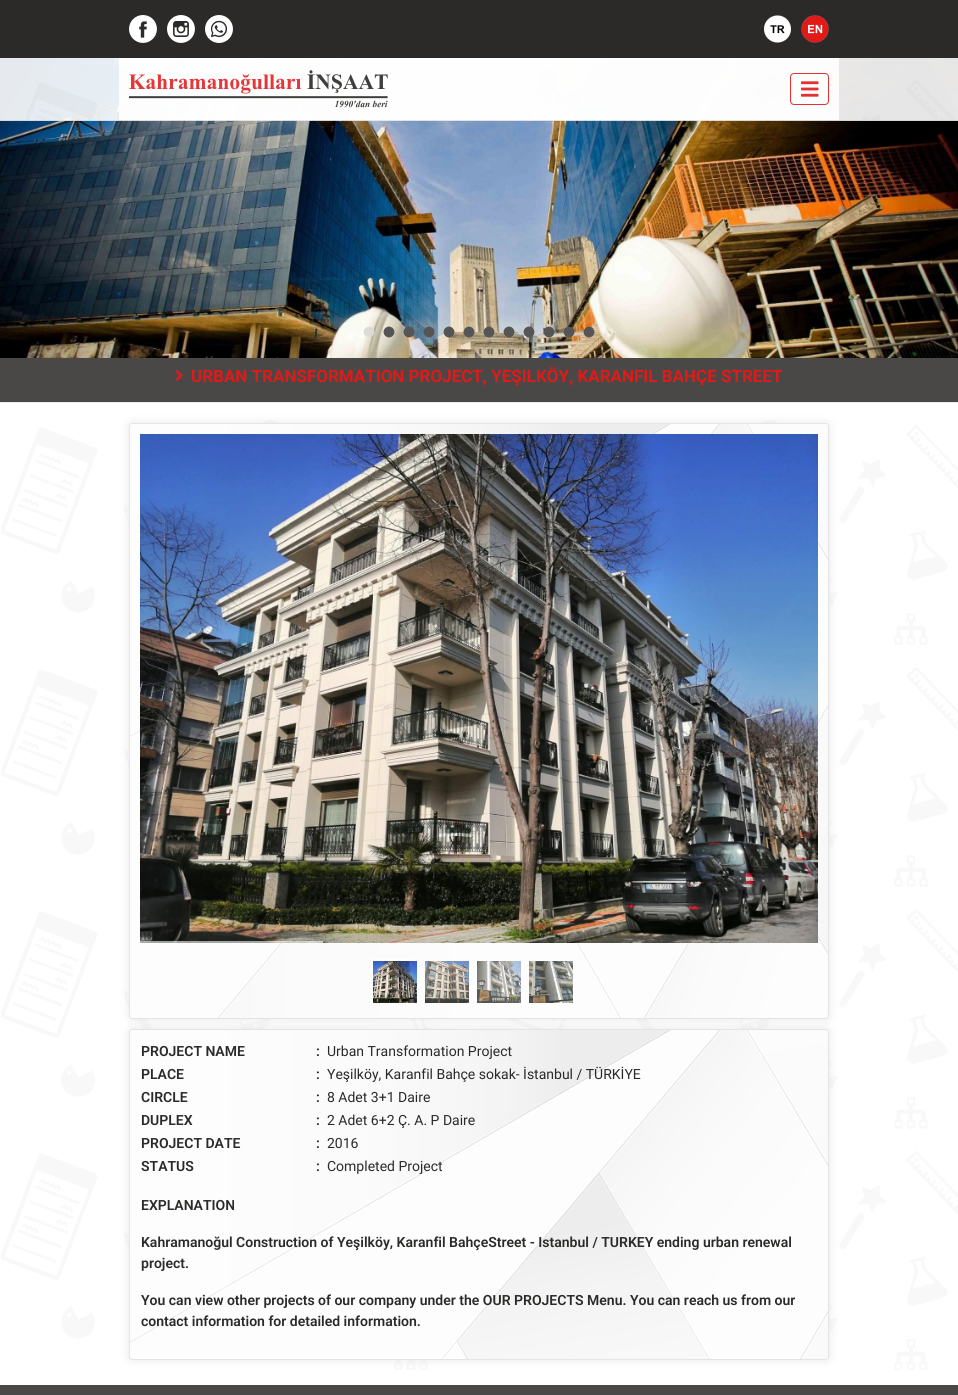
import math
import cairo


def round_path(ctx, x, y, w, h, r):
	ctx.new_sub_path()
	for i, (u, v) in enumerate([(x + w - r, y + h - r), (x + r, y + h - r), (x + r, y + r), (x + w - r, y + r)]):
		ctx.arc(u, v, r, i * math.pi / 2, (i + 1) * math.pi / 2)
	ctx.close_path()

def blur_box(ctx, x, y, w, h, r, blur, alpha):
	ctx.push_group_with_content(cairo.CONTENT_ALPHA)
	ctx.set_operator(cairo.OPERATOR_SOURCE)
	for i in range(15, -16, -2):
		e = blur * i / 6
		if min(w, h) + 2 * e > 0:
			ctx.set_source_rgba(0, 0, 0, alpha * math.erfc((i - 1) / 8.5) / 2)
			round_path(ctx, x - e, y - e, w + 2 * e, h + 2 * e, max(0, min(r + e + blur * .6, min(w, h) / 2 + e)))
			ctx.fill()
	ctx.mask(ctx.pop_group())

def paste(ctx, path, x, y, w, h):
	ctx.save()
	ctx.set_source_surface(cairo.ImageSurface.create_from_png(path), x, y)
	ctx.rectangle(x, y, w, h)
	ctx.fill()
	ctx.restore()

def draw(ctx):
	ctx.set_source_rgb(1, 1, 1)
	ctx.paint()
	ctx.set_source_rgb(0.169, 0.165, 0.161)
	ctx.rectangle(0, 0, 958, 58)
	ctx.fill()
	paste(ctx, 'media/1.png', 129, 15, 28, 28)
	paste(ctx, 'media/2.png', 167, 15, 28, 28)
	paste(ctx, 'media/3.png', 205, 15, 28, 28)
	paste(ctx, 'media/4.png', 764, 15, 27, 28)
	paste(ctx, 'media/5.png', 801, 15, 28, 28)
	paste(ctx, 'media/6.png', 0, 58, 958, 300)
	paste(ctx, 'media/7.png', 363, 326, 12, 11)
	paste(ctx, 'media/8.png', 383, 326, 12, 12)
	paste(ctx, 'media/9.png', 403, 326, 12, 12)
	paste(ctx, 'media/10.png', 423, 326, 12, 12)
	paste(ctx, 'media/11.png', 443, 326, 12, 12)
	paste(ctx, 'media/12.png', 463, 326, 12, 12)
	paste(ctx, 'media/13.png', 483, 326, 12, 12)
	paste(ctx, 'media/14.png', 503, 326, 12, 12)
	paste(ctx, 'media/15.png', 523, 326, 12, 12)
	paste(ctx, 'media/16.png', 543, 326, 12, 12)
	paste(ctx, 'media/17.png', 563, 326, 12, 12)
	paste(ctx, 'media/18.png', 583, 326, 12, 12)
	ctx.set_source_rgba(1, 1, 1, 0.9)
	ctx.rectangle(0, 58, 958, 62)
	ctx.fill()
	paste(ctx, 'media/19.png', 25, 75, 929, 46)
	ctx.set_source_rgba(0.922, 0.922, 0.922, 0.9)
	ctx.rectangle(0, 120, 958, 1)
	ctx.fill()
	ctx.set_source_rgba(1, 1, 1, 0.9)
	ctx.rectangle(119, 58, 720, 62)
	ctx.fill()
	paste(ctx, 'media/20.png', 129, 70, 259, 38)
	round_path(ctx, 790.5, 73.5, 38, 31, 3.5)
	ctx.set_source_rgb(0.89, 0.188, 0.188)
	ctx.set_line_width(1)
	ctx.stroke()
	paste(ctx, 'media/21.png', 801, 81, 18, 16)
	ctx.set_source_rgb(0.29, 0.282, 0.275)
	ctx.rectangle(0, 358, 958, 44)
	ctx.fill()
	ctx.set_source_rgb(0.922, 0.922, 0.922)
	ctx.rectangle(0, 402, 958, 1)
	ctx.fill()
	paste(ctx, 'media/22.png', 175, 370, 8, 11)
	ctx.select_font_face('Roboto', cairo.FONT_SLANT_NORMAL, cairo.FONT_WEIGHT_BOLD)
	ctx.set_font_size(17)
	ctx.set_source_rgb(0.878, 0.098, 0.098)
	ctx.move_to(191, 382)
	ctx.show_text('URBAN TRANSFORMATION PROJECT, YEŞILKÖY, KARANFIL BAHÇE STREET')
	paste(ctx, 'media/23.png', 1, 420, 957, 950)
	ctx.set_source_rgb(0.824, 0.824, 0.824)
	blur_box(ctx, 129, 423, 700, 596, 3, 5, 0.5)
	ctx.set_source_rgb(1, 1, 1)
	round_path(ctx, 129, 423, 700, 596, 3)
	ctx.fill()
	paste(ctx, 'media/24.png', 129, 424, 699, 594)
	round_path(ctx, 129.5, 423.5, 699, 595, 2.5)
	ctx.set_source_rgb(0.894, 0.894, 0.894)
	ctx.stroke()
	paste(ctx, 'media/25.png', 140, 434, 678, 509)
	ctx.set_source_rgba(1, 1, 1, 0.6)
	ctx.rectangle(140, 941, 183, 2)
	ctx.fill()
	ctx.set_source_rgb(1, 1, 1)
	ctx.rectangle(371, 959, 44, 44)
	ctx.fill()
	paste(ctx, 'media/26.png', 373, 961, 44, 42)
	paste(ctx, 'media/27.png', 425, 961, 44, 42)
	paste(ctx, 'media/28.png', 477, 961, 44, 42)
	paste(ctx, 'media/29.png', 529, 961, 44, 42)
	ctx.set_source_rgb(0.824, 0.824, 0.824)
	blur_box(ctx, 129, 1029, 700, 331, 3, 5, 0.5)
	ctx.set_source_rgb(1, 1, 1)
	round_path(ctx, 129, 1029, 700, 331, 3)
	ctx.fill()
	paste(ctx, 'media/30.png', 129, 1030, 699, 329)
	round_path(ctx, 129.5, 1029.5, 699, 330, 2.5)
	ctx.set_source_rgb(0.894, 0.894, 0.894)
	ctx.stroke()
	ctx.select_font_face('Roboto SemiBold')
	ctx.set_font_size(14)
	ctx.set_source_rgb(0.169, 0.165, 0.161)
	ctx.move_to(141, 1056)
	ctx.show_text('PROJECT NAME')
	ctx.move_to(316, 1056)
	ctx.show_text(':')
	ctx.select_font_face('Roboto')
	ctx.move_to(327, 1056)
	ctx.show_text('Urban Transformation Project')
	ctx.select_font_face('Roboto SemiBold')
	ctx.move_to(141, 1079)
	ctx.show_text('PLACE')
	ctx.move_to(316, 1079)
	ctx.show_text(':')
	ctx.select_font_face('Roboto')
	ctx.move_to(327, 1079)
	ctx.show_text('Yeşilköy, Karanfil Bahçe sokak- İstanbul / TÜRKİYE')
	ctx.select_font_face('Roboto SemiBold')
	ctx.move_to(141, 1102)
	ctx.show_text('CIRCLE')
	ctx.move_to(316, 1102)
	ctx.show_text(':')
	ctx.select_font_face('Roboto')
	ctx.move_to(327, 1102)
	ctx.show_text('8 Adet 3+1 Daire')
	ctx.select_font_face('Roboto SemiBold')
	ctx.move_to(141, 1125)
	ctx.show_text('DUPLEX')
	ctx.move_to(316, 1125)
	ctx.show_text(':')
	ctx.select_font_face('Roboto')
	ctx.move_to(327, 1125)
	ctx.show_text('2 Adet 6+2 Ç. A. P Daire')
	ctx.select_font_face('Roboto SemiBold')
	ctx.move_to(141, 1148)
	ctx.show_text('PROJECT DATE')
	ctx.move_to(316, 1148)
	ctx.show_text(':')
	ctx.select_font_face('Roboto')
	ctx.move_to(327, 1148)
	ctx.show_text('2016')
	ctx.select_font_face('Roboto SemiBold')
	ctx.move_to(141, 1171)
	ctx.show_text('STATUS')
	ctx.move_to(316, 1171)
	ctx.show_text(':')
	ctx.select_font_face('Roboto')
	ctx.move_to(327, 1171)
	ctx.show_text('Completed Project')
	ctx.select_font_face('Roboto SemiBold')
	for x, y, s in [
		(141, 1210, 'EXPLANATION'),
		(141, 1247, 'Kahramanoğul Construction of Yeşilköy, Karanfil BahçeStreet - Istanbul / TURKEY ending urban renewal'),
		(141, 1268, 'project.'),
		(141, 1305, 'You can view other projects of our company under the OUR PROJECTS Menu. You can reach us from our'),
		(141, 1326, 'contact information for detailed information.'),
	]:
		ctx.move_to(x, y)
		ctx.show_text(s)
	ctx.set_source_rgb(0.29, 0.282, 0.275)
	ctx.rectangle(0, 1385, 958, 10)
	ctx.fill()


surface = cairo.ImageSurface(cairo.FORMAT_RGB24, 958, 1395)
ctx = cairo.Context(surface)
options = cairo.FontOptions()
options.set_hint_metrics(cairo.HINT_METRICS_OFF)
options.set_hint_style(cairo.HINT_STYLE_NONE)
ctx.set_font_options(options)
ctx.set_miter_limit(4)
draw(ctx)
surface.write_to_png('image.png')
